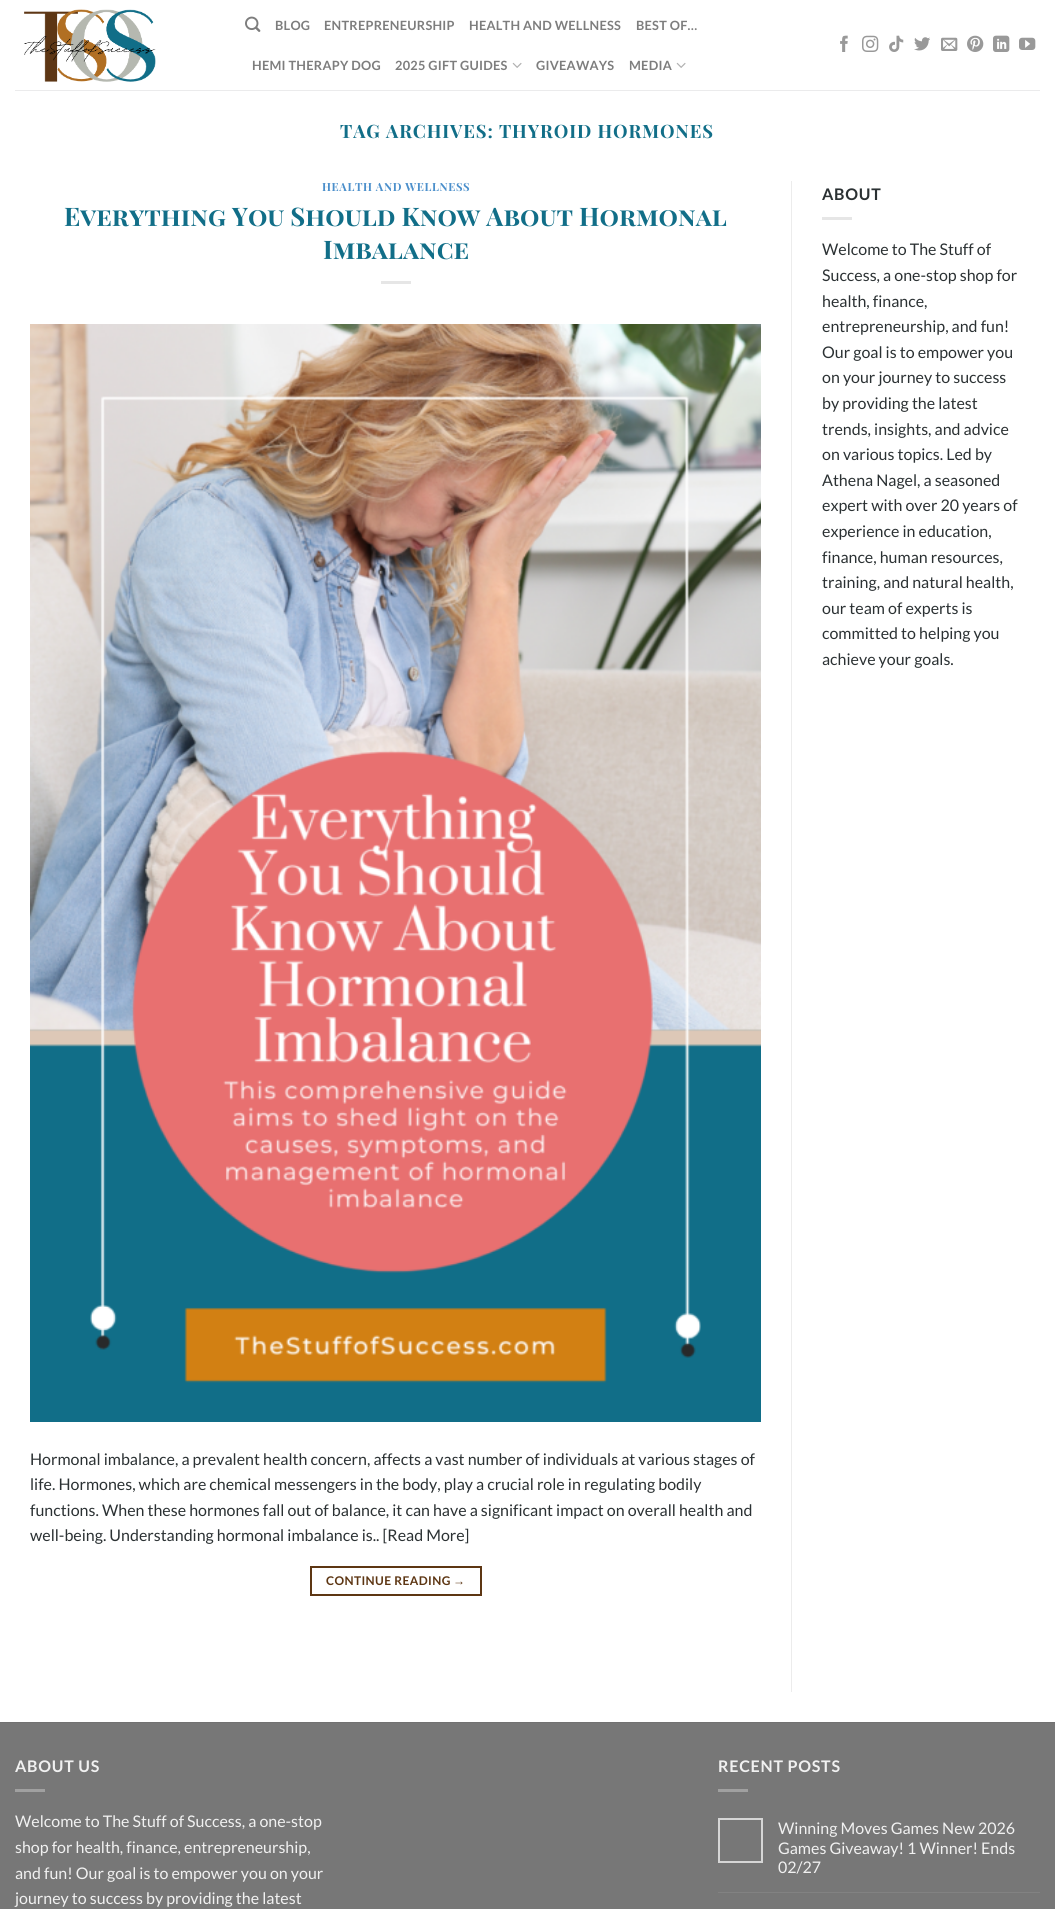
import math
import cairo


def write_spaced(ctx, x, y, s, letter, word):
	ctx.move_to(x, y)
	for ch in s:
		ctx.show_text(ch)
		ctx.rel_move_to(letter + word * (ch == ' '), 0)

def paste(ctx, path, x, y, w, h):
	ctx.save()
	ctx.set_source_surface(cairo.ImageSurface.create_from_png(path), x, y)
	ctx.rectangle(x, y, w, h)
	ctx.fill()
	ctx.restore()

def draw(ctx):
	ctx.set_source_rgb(1, 1, 1)
	ctx.paint()
	paste(ctx, 'media/1.png', 24, 9, 132, 73)
	paste(ctx, 'media/2.png', 245, 16, 16, 16)
	ctx.select_font_face('Lato', cairo.FONT_SLANT_NORMAL, cairo.FONT_WEIGHT_BOLD)
	ctx.set_font_size(12.75)
	ctx.set_source_rgb(0.49, 0.49, 0.49)
	for x, y, s in [
		(275, 30, 'BLOG'),
		(324, 30, 'ENTREPRENEURSHIP'),
		(469, 30, 'HEALTH AND WELLNESS'),
		(636, 30, 'BEST OF…'),
		(252, 70, 'HEMI THERAPY DOG'),
		(395, 70, '2025 GIFT GUIDES'),
	]:
		write_spaced(ctx, x, y, s, 0.25, 0)
	paste(ctx, 'media/3.png', 512, 62, 10, 6)
	write_spaced(ctx, 536, 70, 'GIVEAWAYS', 0.25, 0)
	write_spaced(ctx, 629, 70, 'MEDIA', 0.25, 0)
	paste(ctx, 'media/3.png', 676, 62, 10, 6)
	paste(ctx, 'media/4.png', 840, 35, 8, 17)
	paste(ctx, 'media/5.png', 862, 35, 17, 17)
	paste(ctx, 'media/6.png', 889, 35, 15, 17)
	paste(ctx, 'media/7.png', 914, 37, 16, 14)
	paste(ctx, 'media/8.png', 941, 37, 17, 14)
	paste(ctx, 'media/9.png', 967, 35, 17, 17)
	paste(ctx, 'media/10.png', 993, 35, 17, 17)
	paste(ctx, 'media/11.png', 1019, 37, 17, 13)
	ctx.set_source_rgb(0.918, 0.918, 0.922)
	ctx.rectangle(15, 90, 1025, 1)
	ctx.fill()
	ctx.select_font_face('Playfair Display SC', cairo.FONT_SLANT_NORMAL, cairo.FONT_WEIGHT_BOLD)
	ctx.set_font_size(18.4)
	ctx.set_source_rgb(0.067, 0.431, 0.533)
	write_spaced(ctx, 340, 138, 'TAG ARCHIVES: THYROID HORMONES', 0.9, 0)
	ctx.set_font_size(11.25)
	ctx.set_source_rgb(0.294, 0.561, 0.796)
	write_spaced(ctx, 322, 191, 'HEALTH AND WELLNESS', 0.6, 0)
	ctx.set_font_size(25.6)
	ctx.set_source_rgb(0.067, 0.431, 0.533)
	ctx.move_to(64, 226)
	ctx.show_text('Everything You Should Know About Hormonal')
	ctx.move_to(323, 259)
	ctx.show_text('Imbalance')
	ctx.set_source_rgb(0.902, 0.902, 0.902)
	ctx.rectangle(381, 281, 30, 3)
	ctx.fill()
	paste(ctx, 'media/12.png', 30, 324, 731, 1098)
	ctx.select_font_face('Lato')
	ctx.set_font_size(16)
	ctx.set_source_rgb(0.169, 0.192, 0.2)
	for x, y, s in [
		(30, 1465, 'Hormonal imbalance, a prevalent health concern, affects a vast number of individuals at various stages of'),
		(30, 1490, 'life. Hormones, which are chemical messengers in the body, play a crucial role in regulating bodily'),
		(30, 1516, 'functions. When these hormones fall out of balance, it can have a significant impact on overall health and'),
		(30, 1541, 'well-being. Understanding hormonal imbalance is.. [Read More]'),
	]:
		ctx.move_to(x, y)
		ctx.show_text(s)
	ctx.rectangle(311, 1567, 170, 28)
	ctx.set_source_rgb(0.365, 0.212, 0.078)
	ctx.stroke()
	ctx.select_font_face('Lato', cairo.FONT_SLANT_NORMAL, cairo.FONT_WEIGHT_BOLD)
	ctx.set_font_size(12)
	write_spaced(ctx, 326, 1585, 'CONTINUE READING', 0.4, 0)
	ctx.select_font_face('Liberation Sans', cairo.FONT_SLANT_NORMAL, cairo.FONT_WEIGHT_BOLD)
	write_spaced(ctx, 453, 1585, '→', 0.4, 0)
	ctx.set_source_rgb(0.925, 0.925, 0.925)
	ctx.rectangle(791, 181, 1, 1511)
	ctx.fill()
	ctx.select_font_face('Lato', cairo.FONT_SLANT_NORMAL, cairo.FONT_WEIGHT_BOLD)
	ctx.set_font_size(16)
	ctx.set_source_rgb(0.169, 0.192, 0.2)
	write_spaced(ctx, 822, 200, 'ABOUT', 0.75, 0)
	ctx.set_source_rgb(0.902, 0.902, 0.902)
	ctx.rectangle(822, 217, 30, 3)
	ctx.fill()
	ctx.select_font_face('Lato')
	ctx.set_source_rgb(0.169, 0.192, 0.2)
	for x, y, s in [
		(822, 255, 'Welcome to The Stuff of'),
		(822, 281, 'Success, a one-stop shop for'),
		(822, 307, 'health, finance,'),
		(822, 332, 'entrepreneurship, and fun!'),
		(822, 358, 'Our goal is to empower you'),
		(822, 383, 'on your journey to success'),
		(822, 409, 'by providing the latest'),
		(822, 435, 'trends, insights, and advice'),
		(822, 460, 'on various topics. Led by'),
		(822, 486, 'Athena Nagel, a seasoned'),
		(822, 511, 'expert with over 20 years of'),
		(822, 537, 'experience in education,'),
		(822, 563, 'finance, human resources,'),
		(822, 588, 'training, and natural health,'),
		(822, 614, 'our team of experts is'),
		(822, 639, 'committed to helping you'),
		(822, 665, 'achieve your goals.'),
	]:
		ctx.move_to(x, y)
		ctx.show_text(s)
	ctx.set_source_rgb(0.467, 0.467, 0.467)
	ctx.rectangle(0, 1723, 1055, 186)
	ctx.fill()
	ctx.set_source_rgb(0.443, 0.443, 0.443)
	ctx.rectangle(0, 1722, 1055, 1)
	ctx.fill()
	ctx.select_font_face('Lato', cairo.FONT_SLANT_NORMAL, cairo.FONT_WEIGHT_BOLD)
	ctx.set_source_rgb(0.945, 0.945, 0.945)
	write_spaced(ctx, 15, 1772, 'ABOUT US', 0.75, 0)
	ctx.set_source_rgb(0.627, 0.627, 0.627)
	ctx.rectangle(15, 1789, 30, 3)
	ctx.fill()
	ctx.select_font_face('Lato')
	ctx.set_source_rgb(0.945, 0.945, 0.945)
	for x, y, s in [
		(15, 1827, 'Welcome to The Stuff of Success, a one-stop'),
		(15, 1853, 'shop for health, finance, entrepreneurship,'),
		(15, 1879, 'and fun! Our goal is to empower you on your'),
		(15, 1904, 'journey to success by providing the latest'),
	]:
		ctx.move_to(x, y)
		ctx.show_text(s)
	ctx.select_font_face('Lato', cairo.FONT_SLANT_NORMAL, cairo.FONT_WEIGHT_BOLD)
	write_spaced(ctx, 718, 1772, 'RECENT POSTS', 0.75, 0)
	ctx.set_source_rgb(0.627, 0.627, 0.627)
	ctx.rectangle(718, 1789, 30, 3)
	ctx.fill()
	ctx.rectangle(719, 1819, 43, 43)
	ctx.set_source_rgb(0.839, 0.839, 0.839)
	ctx.stroke()
	ctx.select_font_face('Lato')
	ctx.set_source_rgb(0.945, 0.945, 0.945)
	for x, y, s in [
		(778, 1834, 'Winning Moves Games New 2026'),
		(778, 1854, 'Games Giveaway! 1 Winner! Ends'),
		(778, 1873, '02/27'),
	]:
		ctx.move_to(x, y)
		ctx.show_text(s)
	ctx.set_source_rgb(0.51, 0.51, 0.51)
	ctx.rectangle(718, 1892, 322, 1)
	ctx.fill()


surface = cairo.ImageSurface(cairo.FORMAT_RGB24, 1055, 1909)
ctx = cairo.Context(surface)
options = cairo.FontOptions()
options.set_hint_metrics(cairo.HINT_METRICS_OFF)
options.set_hint_style(cairo.HINT_STYLE_NONE)
ctx.set_font_options(options)
ctx.set_miter_limit(4)
draw(ctx)
surface.write_to_png('image.png')
